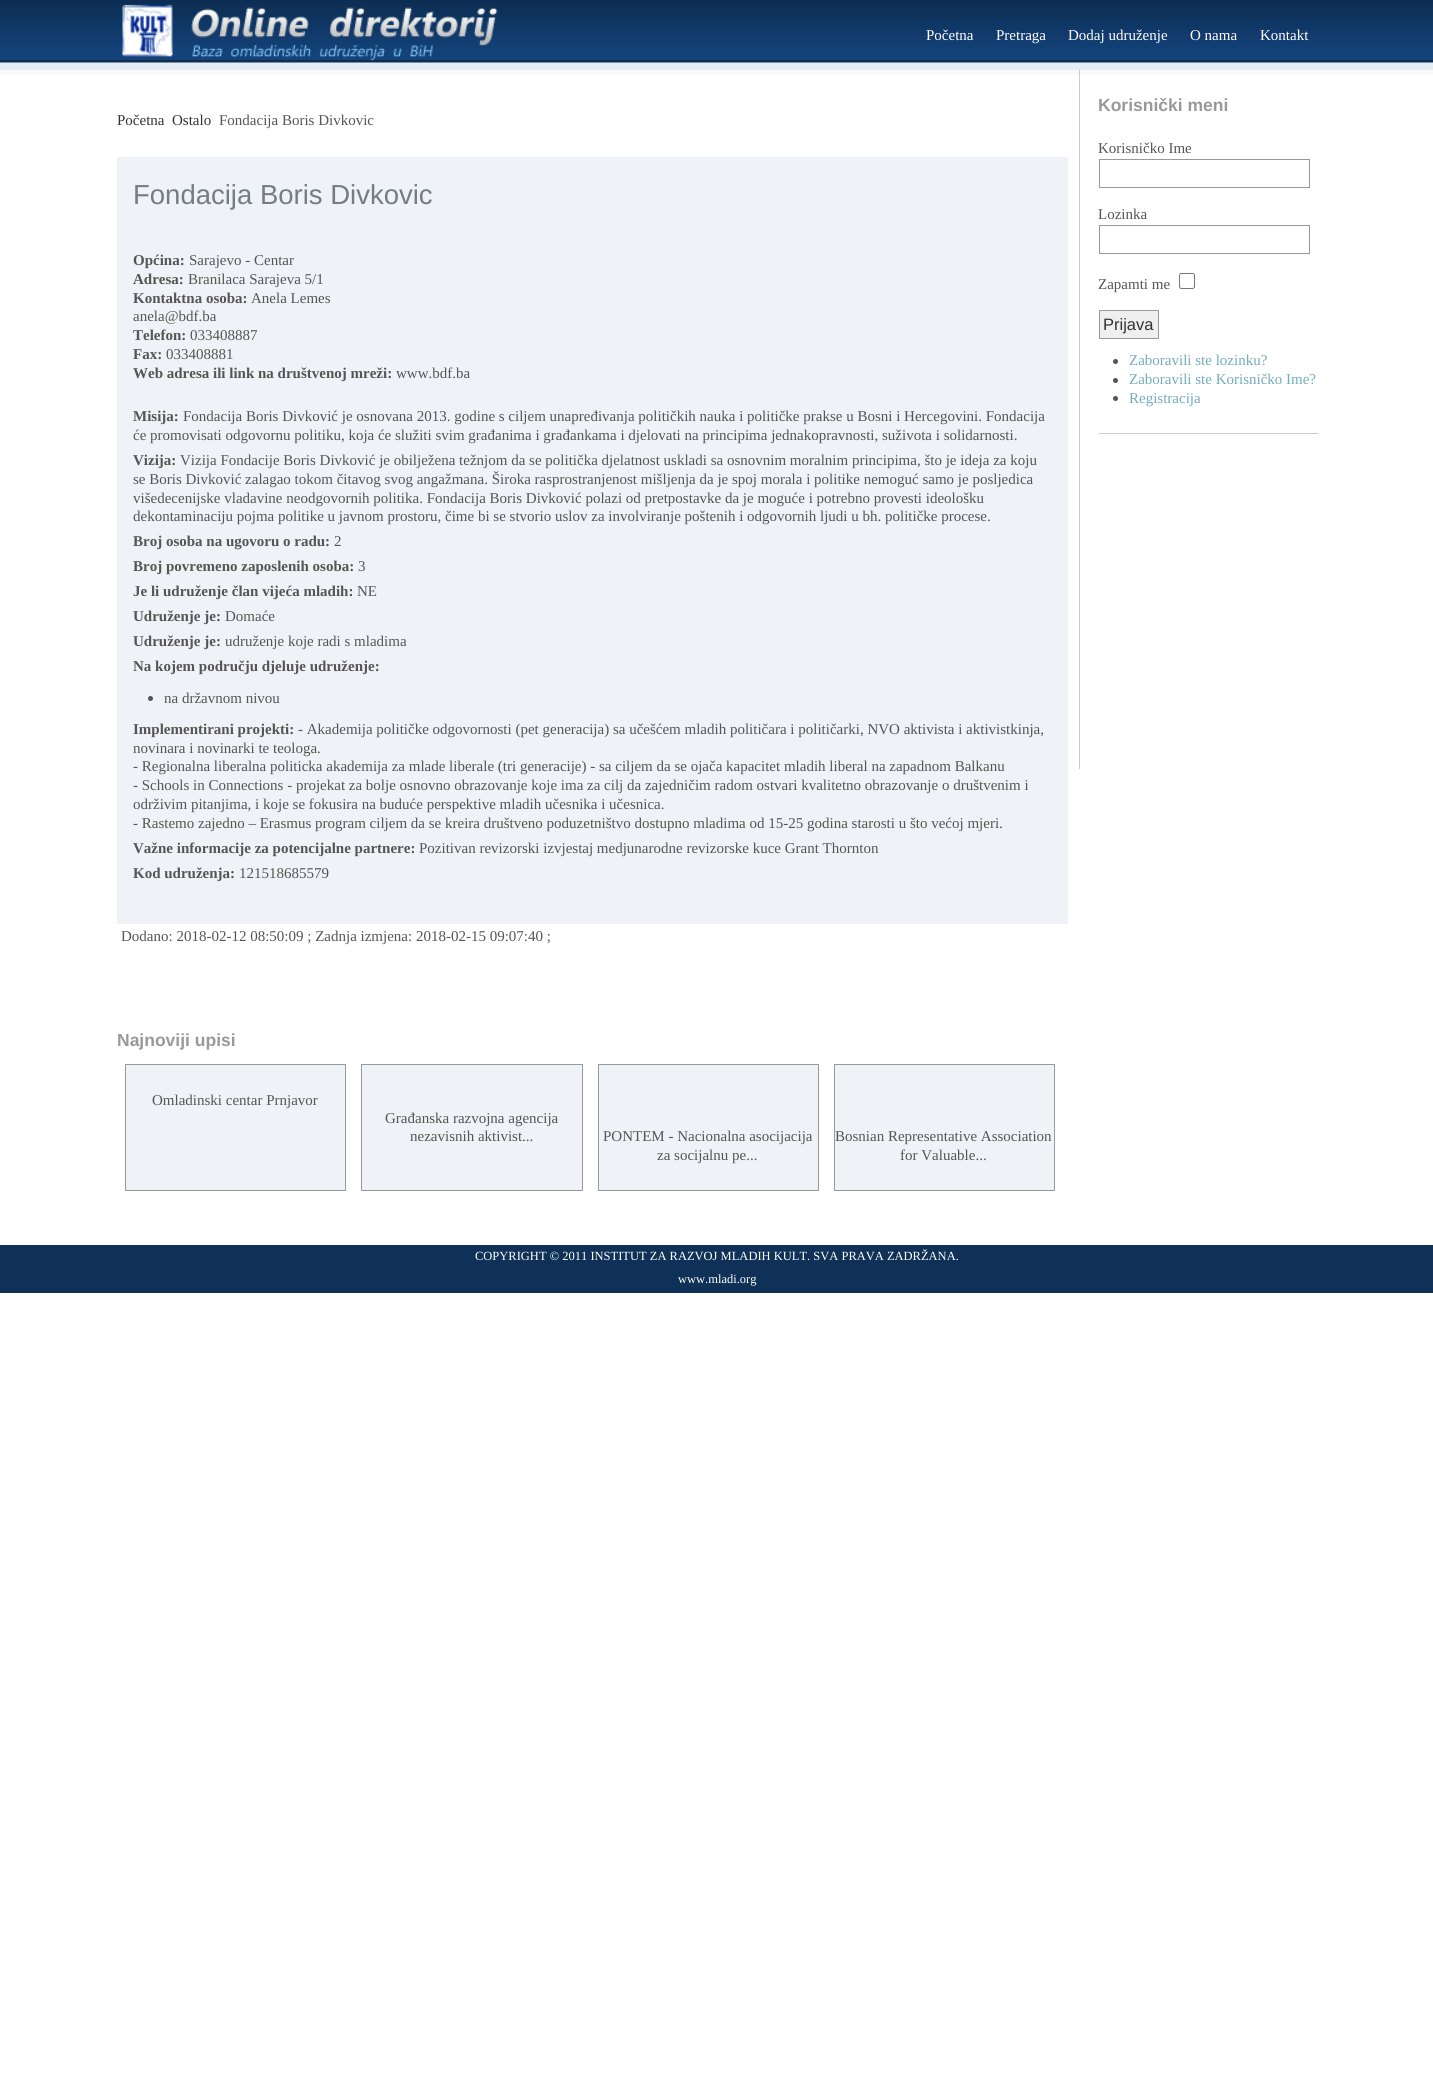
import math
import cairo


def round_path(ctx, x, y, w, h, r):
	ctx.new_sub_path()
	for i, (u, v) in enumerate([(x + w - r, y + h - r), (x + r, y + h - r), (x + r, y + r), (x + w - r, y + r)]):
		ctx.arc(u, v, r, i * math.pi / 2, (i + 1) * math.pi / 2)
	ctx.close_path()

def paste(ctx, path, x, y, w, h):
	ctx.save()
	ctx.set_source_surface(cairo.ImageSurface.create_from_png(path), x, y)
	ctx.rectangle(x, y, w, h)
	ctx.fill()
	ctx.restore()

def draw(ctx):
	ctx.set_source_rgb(1, 1, 1)
	ctx.paint()
	paste(ctx, 'media/1.png', 0, 70, 1433, 5)
	paste(ctx, 'media/2.png', 0, 0, 1433, 70)
	paste(ctx, 'media/3.png', 122, 4, 376, 57)
	ctx.select_font_face('Liberation Serif')
	ctx.set_font_size(15)
	ctx.set_source_rgb(1, 1, 1)
	for x, y, s in [
		(926, 40, 'Početna'),
		(996, 40, 'Pretraga'),
		(1068, 40, 'Dodaj udruženje'),
		(1190, 40, 'O nama'),
		(1260, 40, 'Kontakt'),
	]:
		ctx.move_to(x, y)
		ctx.show_text(s)
	ctx.set_source_rgb(0.2, 0.2, 0.2)
	ctx.move_to(117, 125)
	ctx.show_text('Početna')
	ctx.move_to(172, 125)
	ctx.show_text('Ostalo')
	ctx.set_source_rgb(0.333, 0.333, 0.333)
	ctx.move_to(219, 125)
	ctx.show_text('Fondacija Boris Divkovic')
	ctx.set_source_rgb(0.937, 0.949, 0.961)
	ctx.rectangle(117, 157, 951, 767)
	ctx.fill()
	ctx.select_font_face('Liberation Sans')
	ctx.set_font_size(27.5)
	ctx.set_source_rgb(0.455, 0.494, 0.502)
	ctx.move_to(133, 204)
	ctx.show_text('Fondacija Boris Divkovic')
	ctx.select_font_face('Liberation Serif', cairo.FONT_SLANT_NORMAL, cairo.FONT_WEIGHT_BOLD)
	ctx.set_font_size(15)
	ctx.set_source_rgb(0.333, 0.333, 0.333)
	ctx.move_to(133, 265)
	ctx.show_text('Općina:')
	ctx.select_font_face('Liberation Serif')
	ctx.move_to(189, 265)
	ctx.show_text('Sarajevo - Centar')
	ctx.select_font_face('Liberation Serif', cairo.FONT_SLANT_NORMAL, cairo.FONT_WEIGHT_BOLD)
	ctx.move_to(133, 284)
	ctx.show_text('Adresa:')
	ctx.select_font_face('Liberation Serif')
	ctx.move_to(188, 284)
	ctx.show_text('Branilaca Sarajeva 5/1')
	ctx.select_font_face('Liberation Serif', cairo.FONT_SLANT_NORMAL, cairo.FONT_WEIGHT_BOLD)
	ctx.move_to(133, 303)
	ctx.show_text('Kontaktna osoba:')
	ctx.select_font_face('Liberation Serif')
	ctx.move_to(251, 303)
	ctx.show_text('Anela Lemes')
	ctx.move_to(133, 321)
	ctx.show_text('anela@bdf.ba')
	ctx.select_font_face('Liberation Serif', cairo.FONT_SLANT_NORMAL, cairo.FONT_WEIGHT_BOLD)
	ctx.move_to(133, 340)
	ctx.show_text('Telefon:')
	ctx.select_font_face('Liberation Serif')
	ctx.move_to(190, 340)
	ctx.show_text('033408887')
	ctx.select_font_face('Liberation Serif', cairo.FONT_SLANT_NORMAL, cairo.FONT_WEIGHT_BOLD)
	ctx.move_to(133, 359)
	ctx.show_text('Fax:')
	ctx.select_font_face('Liberation Serif')
	ctx.move_to(166, 359)
	ctx.show_text('033408881')
	ctx.select_font_face('Liberation Serif', cairo.FONT_SLANT_NORMAL, cairo.FONT_WEIGHT_BOLD)
	ctx.move_to(133, 378)
	ctx.show_text('Web adresa ili link na društvenoj mreži:')
	ctx.select_font_face('Liberation Serif')
	ctx.move_to(396, 378)
	ctx.show_text('www.bdf.ba')
	ctx.select_font_face('Liberation Serif', cairo.FONT_SLANT_NORMAL, cairo.FONT_WEIGHT_BOLD)
	ctx.move_to(133, 421)
	ctx.show_text('Misija:')
	ctx.select_font_face('Liberation Serif')
	ctx.move_to(183, 421)
	ctx.show_text('Fondacija Boris Divković je osnovana 2013. godine s ciljem unapređivanja političkih nauka i političke prakse u Bosni i Hercegovini. Fondacija')
	ctx.move_to(133, 440)
	ctx.show_text('će promovisati odgovornu politiku, koja će služiti svim građanima i građankama i djelovati na principima jednakopravnosti, suživota i solidarnosti.')
	ctx.select_font_face('Liberation Serif', cairo.FONT_SLANT_NORMAL, cairo.FONT_WEIGHT_BOLD)
	ctx.move_to(133, 465)
	ctx.show_text('Vizija:')
	ctx.select_font_face('Liberation Serif')
	for x, y, s in [
		(180, 465, 'Vizija Fondacije Boris Divković je obilježena težnjom da se politička djelatnost uskladi sa osnovnim moralnim principima, što je ideja za koju'),
		(133, 484, 'se Boris Divković zalagao tokom čitavog svog angažmana. Široka rasprostranjenost mišljenja da je spoj morala i politike nemoguć samo je posljedica'),
		(133, 503, 'višedecenijske vladavine neodgovornih politika. Fondacija Boris Divković polazi od pretpostavke da je moguće i potrebno provesti ideološku'),
		(133, 521, 'dekontaminaciju pojma politike u javnom prostoru, čime bi se stvorio uslov za involviranje poštenih i odgovornih ljudi u bh. političke procese.'),
	]:
		ctx.move_to(x, y)
		ctx.show_text(s)
	ctx.select_font_face('Liberation Serif', cairo.FONT_SLANT_NORMAL, cairo.FONT_WEIGHT_BOLD)
	ctx.move_to(133, 546)
	ctx.show_text('Broj osoba na ugovoru o radu:')
	ctx.select_font_face('Liberation Serif')
	ctx.move_to(334, 546)
	ctx.show_text('2')
	ctx.select_font_face('Liberation Serif', cairo.FONT_SLANT_NORMAL, cairo.FONT_WEIGHT_BOLD)
	ctx.move_to(133, 571)
	ctx.show_text('Broj povremeno zaposlenih osoba:')
	ctx.select_font_face('Liberation Serif')
	ctx.move_to(358, 571)
	ctx.show_text('3')
	ctx.select_font_face('Liberation Serif', cairo.FONT_SLANT_NORMAL, cairo.FONT_WEIGHT_BOLD)
	ctx.move_to(133, 596)
	ctx.show_text('Je li udruženje član vijeća mladih:')
	ctx.select_font_face('Liberation Serif')
	ctx.move_to(357, 596)
	ctx.show_text('NE')
	ctx.select_font_face('Liberation Serif', cairo.FONT_SLANT_NORMAL, cairo.FONT_WEIGHT_BOLD)
	ctx.move_to(133, 621)
	ctx.show_text('Udruženje je:')
	ctx.select_font_face('Liberation Serif')
	ctx.move_to(225, 621)
	ctx.show_text('Domaće')
	ctx.select_font_face('Liberation Serif', cairo.FONT_SLANT_NORMAL, cairo.FONT_WEIGHT_BOLD)
	ctx.move_to(133, 646)
	ctx.show_text('Udruženje je:')
	ctx.select_font_face('Liberation Serif')
	ctx.move_to(225, 646)
	ctx.show_text('udruženje koje radi s mladima')
	ctx.select_font_face('Liberation Serif', cairo.FONT_SLANT_NORMAL, cairo.FONT_WEIGHT_BOLD)
	ctx.move_to(133, 671)
	ctx.show_text('Na kojem području djeluje udruženje:')
	ctx.new_path()
	ctx.arc(150.5, 698.5, 2.5, 0, 2 * math.pi)
	ctx.fill()
	ctx.select_font_face('Liberation Serif')
	ctx.move_to(164, 703)
	ctx.show_text('na državnom nivou')
	ctx.select_font_face('Liberation Serif', cairo.FONT_SLANT_NORMAL, cairo.FONT_WEIGHT_BOLD)
	ctx.move_to(133, 734)
	ctx.show_text('Implementirani projekti:')
	ctx.select_font_face('Liberation Serif')
	for x, y, s in [
		(298, 734, '- Akademija političke odgovornosti (pet generacija) sa učešćem mladih političara i političarki, NVO aktivista i aktivistkinja,'),
		(133, 753, 'novinara i novinarki te teologa.'),
		(133, 771, '- Regionalna liberalna politicka akademija za mlade liberale (tri generacije) - sa ciljem da se ojača kapacitet mladih liberal na zapadnom Balkanu'),
		(133, 790, '- Schools in Connections - projekat za bolje osnovno obrazovanje koje ima za cilj da zajedničim radom ostvari kvalitetno obrazovanje o društvenim i'),
		(133, 809, 'održivim pitanjima, i koje se fokusira na buduće perspektive mladih učesnika i učesnica.'),
		(133, 828, '- Rastemo zajedno – Erasmus program ciljem da se kreira društveno poduzetništvo dostupno mladima od 15-25 godina starosti u što većoj mjeri.'),
	]:
		ctx.move_to(x, y)
		ctx.show_text(s)
	ctx.select_font_face('Liberation Serif', cairo.FONT_SLANT_NORMAL, cairo.FONT_WEIGHT_BOLD)
	ctx.move_to(133, 853)
	ctx.show_text('Važne informacije za potencijalne partnere:')
	ctx.select_font_face('Liberation Serif')
	ctx.move_to(419, 853)
	ctx.show_text('Pozitivan revizorski izvjestaj medjunarodne revizorske kuce Grant Thornton')
	ctx.select_font_face('Liberation Serif', cairo.FONT_SLANT_NORMAL, cairo.FONT_WEIGHT_BOLD)
	ctx.move_to(133, 878)
	ctx.show_text('Kod udruženja:')
	ctx.select_font_face('Liberation Serif')
	ctx.move_to(239, 878)
	ctx.show_text('121518685579')
	ctx.move_to(121, 941)
	ctx.show_text('Dodano: 2018-02-12 08:50:09 ; Zadnja izmjena: 2018-02-15 09:07:40 ;')
	ctx.select_font_face('Liberation Sans', cairo.FONT_SLANT_NORMAL, cairo.FONT_WEIGHT_BOLD)
	ctx.set_font_size(17.5)
	ctx.set_source_rgb(0.6, 0.6, 0.6)
	ctx.move_to(117, 1046)
	ctx.show_text('Najnoviji upisi')
	ctx.set_source_rgb(0.937, 0.949, 0.961)
	ctx.rectangle(125.5, 1064.5, 220, 126)
	ctx.fill_preserve()
	ctx.set_source_rgb(0.6, 0.6, 0.6)
	ctx.set_line_width(1)
	ctx.stroke()
	ctx.select_font_face('Liberation Serif')
	ctx.set_font_size(15)
	ctx.set_source_rgb(0.333, 0.333, 0.333)
	ctx.move_to(152, 1105)
	ctx.show_text('Omladinski centar Prnjavor')
	ctx.set_source_rgb(0.937, 0.949, 0.961)
	ctx.rectangle(361.5, 1064.5, 221, 126)
	ctx.fill_preserve()
	ctx.set_source_rgb(0.6, 0.6, 0.6)
	ctx.stroke()
	ctx.set_source_rgb(0.333, 0.333, 0.333)
	ctx.move_to(385, 1123)
	ctx.show_text('Građanska razvojna agencija')
	ctx.move_to(410, 1141)
	ctx.show_text('nezavisnih aktivist...')
	ctx.set_source_rgb(0.937, 0.949, 0.961)
	ctx.rectangle(598.5, 1064.5, 220, 126)
	ctx.fill_preserve()
	ctx.set_source_rgb(0.6, 0.6, 0.6)
	ctx.stroke()
	ctx.set_source_rgb(0.333, 0.333, 0.333)
	ctx.move_to(603, 1141)
	ctx.show_text('PONTEM - Nacionalna asocijacija')
	ctx.move_to(657, 1160)
	ctx.show_text('za socijalnu pe...')
	ctx.set_source_rgb(0.937, 0.949, 0.961)
	ctx.rectangle(834.5, 1064.5, 220, 126)
	ctx.fill_preserve()
	ctx.set_source_rgb(0.6, 0.6, 0.6)
	ctx.stroke()
	ctx.set_source_rgb(0.333, 0.333, 0.333)
	ctx.move_to(835, 1141)
	ctx.show_text('Bosnian Representative Association')
	ctx.move_to(900, 1160)
	ctx.show_text('for Valuable...')
	ctx.set_source_rgb(0.8, 0.8, 0.8)
	ctx.rectangle(1079, 70, 1, 699)
	ctx.fill()
	ctx.rectangle(1099, 433, 219, 1)
	ctx.fill()
	ctx.select_font_face('Liberation Sans', cairo.FONT_SLANT_NORMAL, cairo.FONT_WEIGHT_BOLD)
	ctx.set_font_size(17.5)
	ctx.set_source_rgb(0.6, 0.6, 0.6)
	ctx.move_to(1098, 111)
	ctx.show_text('Korisnički meni')
	ctx.select_font_face('Liberation Serif')
	ctx.set_font_size(15)
	ctx.set_source_rgb(0.333, 0.333, 0.333)
	ctx.move_to(1098, 153)
	ctx.show_text('Korisničko Ime')
	ctx.rectangle(1099.5, 159.5, 210, 28)
	ctx.set_source_rgb(0.6, 0.6, 0.6)
	ctx.stroke()
	ctx.set_source_rgb(0.333, 0.333, 0.333)
	ctx.move_to(1098, 219)
	ctx.show_text('Lozinka')
	ctx.rectangle(1099.5, 225.5, 210, 28)
	ctx.set_source_rgb(0.6, 0.6, 0.6)
	ctx.stroke()
	ctx.set_source_rgb(0.333, 0.333, 0.333)
	ctx.move_to(1098, 289)
	ctx.show_text('Zapamti me')
	round_path(ctx, 1179.5, 273.5, 15, 15, 2)
	ctx.set_source_rgb(0.463, 0.463, 0.463)
	ctx.stroke()
	ctx.set_source_rgb(0.937, 0.937, 0.937)
	ctx.rectangle(1099.5, 310.5, 59, 28)
	ctx.fill_preserve()
	ctx.set_source_rgb(0.6, 0.6, 0.6)
	ctx.stroke()
	ctx.select_font_face('Liberation Sans')
	ctx.set_font_size(16.5)
	ctx.set_source_rgb(0.2, 0.2, 0.2)
	ctx.move_to(1103, 330)
	ctx.show_text('Prijava')
	ctx.set_source_rgb(0.333, 0.329, 0.329)
	ctx.new_path()
	ctx.arc(1115.5, 361.5, 2.5, 0, 2 * math.pi)
	ctx.fill()
	ctx.select_font_face('Liberation Serif')
	ctx.set_font_size(15)
	ctx.set_source_rgb(0.447, 0.675, 0.737)
	ctx.move_to(1129, 365)
	ctx.show_text('Zaboravili ste lozinku?')
	ctx.set_source_rgb(0.333, 0.329, 0.329)
	ctx.new_path()
	ctx.arc(1115.5, 380.5, 2.5, 0, 2 * math.pi)
	ctx.fill()
	ctx.set_source_rgb(0.447, 0.675, 0.737)
	ctx.move_to(1129, 384)
	ctx.show_text('Zaboravili ste Korisničko Ime?')
	ctx.set_source_rgb(0.333, 0.329, 0.329)
	ctx.new_path()
	ctx.arc(1115.5, 398.5, 2.5, 0, 2 * math.pi)
	ctx.fill()
	ctx.set_source_rgb(0.447, 0.675, 0.737)
	ctx.move_to(1129, 403)
	ctx.show_text('Registracija')
	ctx.set_source_rgb(0.059, 0.192, 0.341)
	ctx.rectangle(0, 1245, 1433, 48)
	ctx.fill()
	ctx.set_font_size(12.5)
	ctx.set_source_rgb(1, 1, 1)
	ctx.move_to(475, 1260)
	ctx.show_text('COPYRIGHT © 2011 INSTITUT ZA RAZVOJ MLADIH KULT. SVA PRAVA ZADRŽANA.')
	ctx.move_to(678, 1283)
	ctx.show_text('www.mladi.org')


surface = cairo.ImageSurface(cairo.FORMAT_RGB24, 1433, 2092)
ctx = cairo.Context(surface)
options = cairo.FontOptions()
options.set_hint_metrics(cairo.HINT_METRICS_OFF)
options.set_hint_style(cairo.HINT_STYLE_NONE)
ctx.set_font_options(options)
ctx.set_miter_limit(4)
draw(ctx)
surface.write_to_png('image.png')
